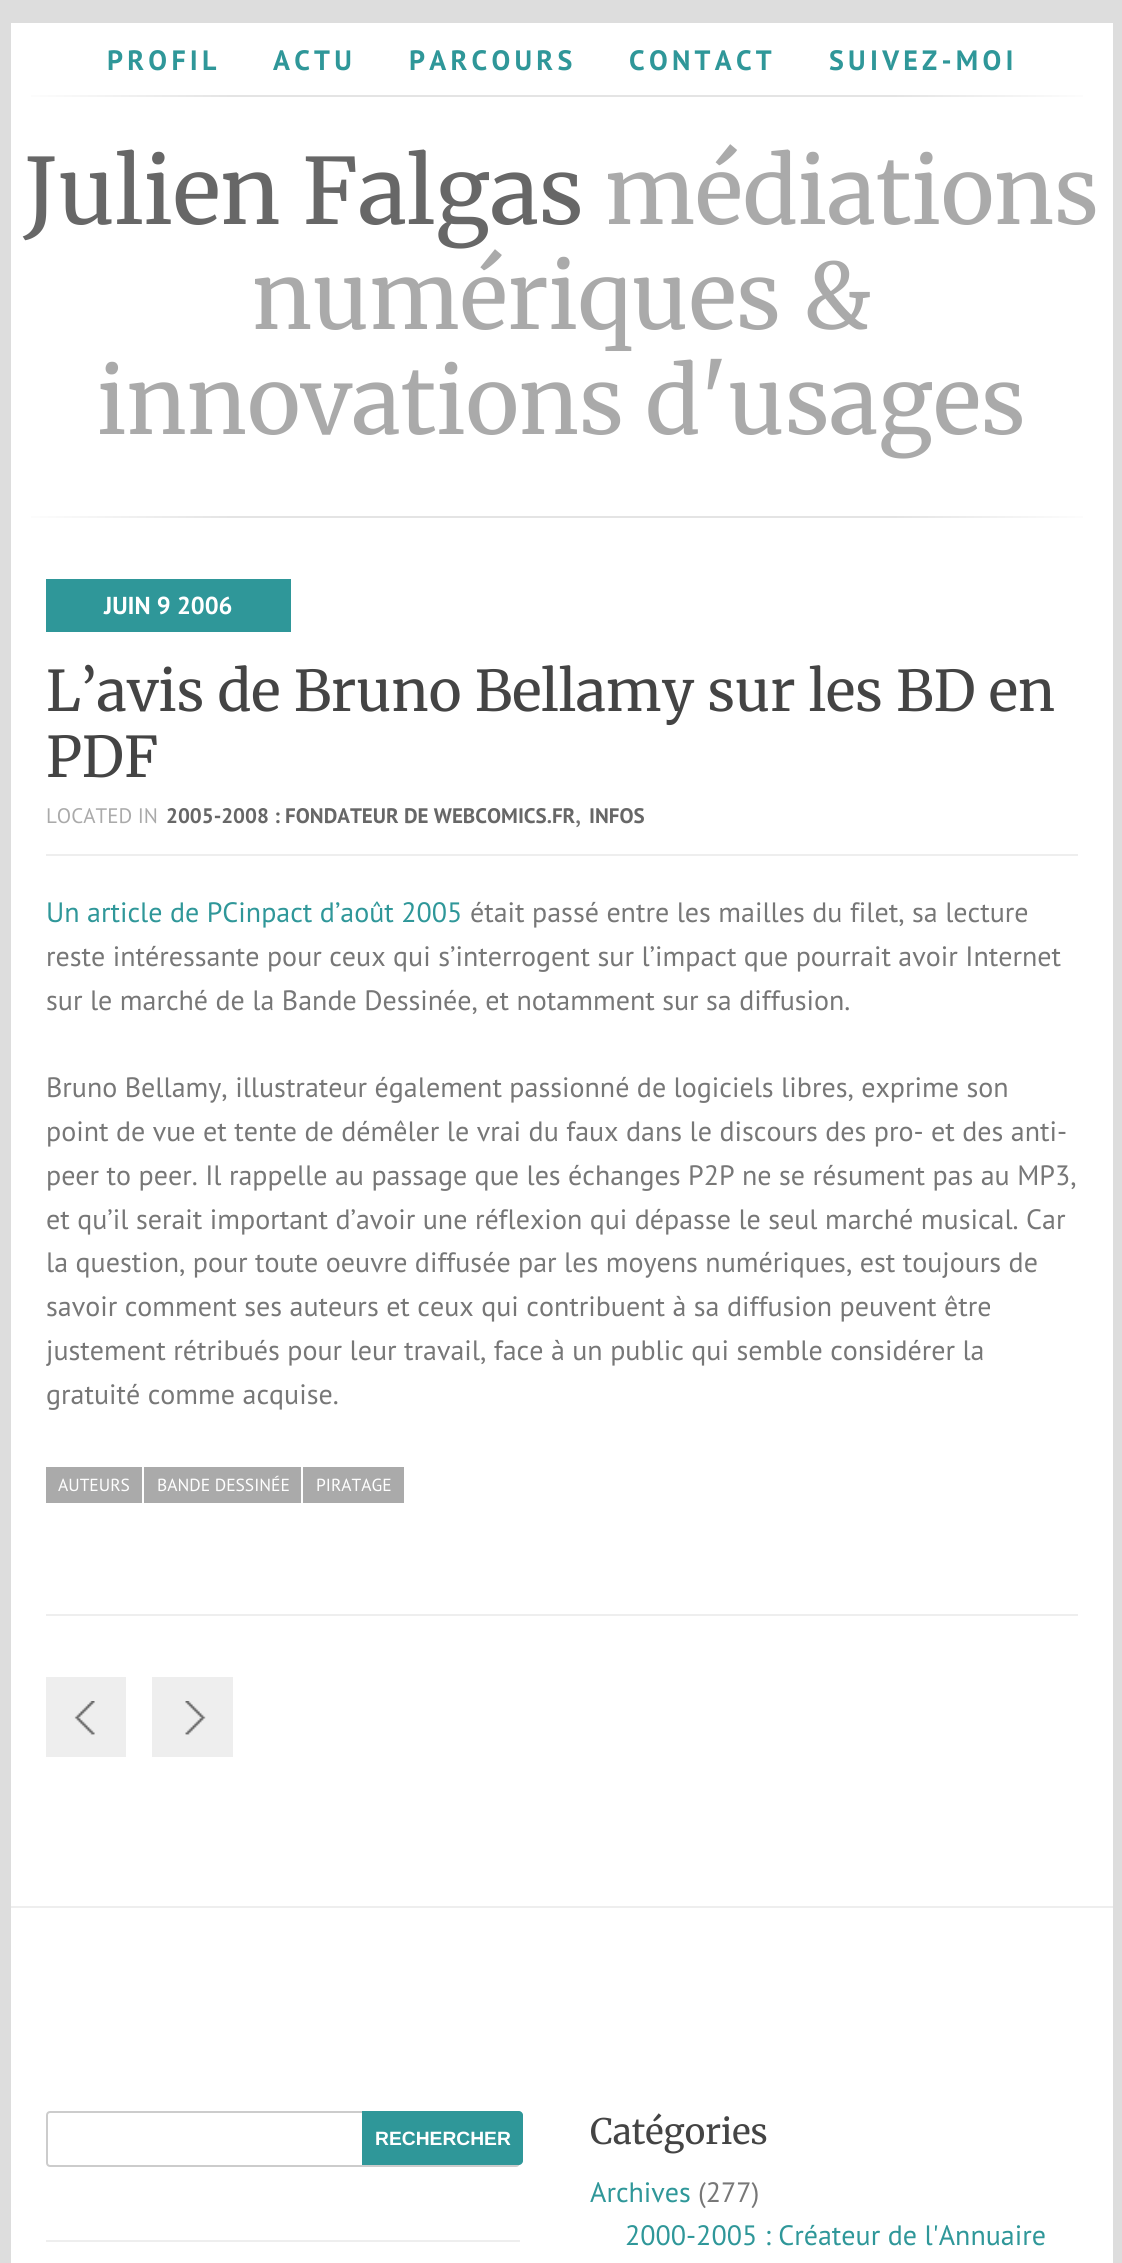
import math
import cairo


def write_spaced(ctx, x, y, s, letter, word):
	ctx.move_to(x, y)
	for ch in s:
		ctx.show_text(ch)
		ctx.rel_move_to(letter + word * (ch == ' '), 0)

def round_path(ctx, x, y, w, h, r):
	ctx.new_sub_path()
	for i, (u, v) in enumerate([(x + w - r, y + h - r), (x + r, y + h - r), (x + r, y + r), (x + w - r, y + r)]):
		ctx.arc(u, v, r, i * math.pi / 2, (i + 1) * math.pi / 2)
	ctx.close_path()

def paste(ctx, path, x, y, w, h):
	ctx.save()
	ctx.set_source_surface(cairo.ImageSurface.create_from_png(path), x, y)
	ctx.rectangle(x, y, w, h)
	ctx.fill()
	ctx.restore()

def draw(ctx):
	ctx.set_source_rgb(0.867, 0.867, 0.867)
	ctx.paint()
	ctx.set_source_rgb(1, 1, 1)
	ctx.rectangle(11, 23, 1102, 2240)
	ctx.fill()
	ctx.select_font_face('PT Sans', cairo.FONT_SLANT_NORMAL, cairo.FONT_WEIGHT_BOLD)
	ctx.set_font_size(28)
	ctx.set_source_rgb(0.184, 0.592, 0.6)
	for x, y, s in [
		(107, 70, 'PROFIL'),
		(273, 70, 'ACTU'),
		(409, 70, 'PARCOURS'),
		(629, 70, 'CONTACT'),
		(829, 70, 'SUIVEZ-MOI'),
	]:
		write_spaced(ctx, x, y, s, 4.25, 0)
	gradient = cairo.LinearGradient(11, 95, 1113, 95)
	gradient.add_color_stop_rgba(0, 1, 1, 1, 1)
	gradient.add_color_stop_rgba(0.2, 0.894, 0.894, 0.894, 1)
	gradient.add_color_stop_rgba(0.8, 0.894, 0.894, 0.894, 1)
	gradient.add_color_stop_rgba(0.99, 1, 1, 1, 1)
	ctx.set_source(gradient)
	ctx.rectangle(31, 95, 1052, 2)
	ctx.fill()
	ctx.select_font_face('Merriweather')
	ctx.set_font_size(91)
	ctx.set_source_rgb(0.404, 0.404, 0.404)
	ctx.move_to(24, 224)
	ctx.show_text('Julien Falgas')
	ctx.set_source_rgb(0.667, 0.667, 0.667)
	for x, y, s in [
		(605, 224, 'médiations'),
		(252, 329, 'numériques &'),
		(97, 434, 'innovations d\'usages'),
	]:
		ctx.move_to(x, y)
		ctx.show_text(s)
	gradient = cairo.LinearGradient(11, 517, 1113, 517)
	gradient.add_color_stop_rgba(0, 1, 1, 1, 1)
	gradient.add_color_stop_rgba(0.2, 0.894, 0.894, 0.894, 1)
	gradient.add_color_stop_rgba(0.8, 0.894, 0.894, 0.894, 1)
	gradient.add_color_stop_rgba(0.99, 1, 1, 1, 1)
	ctx.set_source(gradient)
	ctx.rectangle(31, 516, 1052, 2)
	ctx.fill()
	ctx.set_source_rgb(0.184, 0.592, 0.6)
	ctx.rectangle(46, 579, 245, 53)
	ctx.fill()
	ctx.select_font_face('PT Sans', cairo.FONT_SLANT_NORMAL, cairo.FONT_WEIGHT_BOLD)
	ctx.set_font_size(24.5)
	ctx.set_source_rgb(1, 1, 1)
	ctx.move_to(104, 614)
	ctx.show_text('JUIN 9 2006')
	ctx.set_source_rgb(0.933, 0.933, 0.933)
	ctx.rectangle(46, 854, 1032, 2)
	ctx.fill()
	ctx.select_font_face('Merriweather')
	ctx.set_font_size(56)
	ctx.set_source_rgb(0.267, 0.267, 0.267)
	ctx.move_to(46, 711)
	ctx.show_text('L’avis de Bruno Bellamy sur les BD en')
	ctx.move_to(46, 777)
	ctx.show_text('PDF')
	ctx.select_font_face('PT Sans')
	ctx.set_font_size(21)
	ctx.set_source_rgb(0.667, 0.667, 0.667)
	ctx.move_to(46, 823)
	ctx.show_text('LOCATED IN')
	ctx.select_font_face('PT Sans', cairo.FONT_SLANT_NORMAL, cairo.FONT_WEIGHT_BOLD)
	ctx.set_source_rgb(0.404, 0.404, 0.404)
	ctx.move_to(166, 823)
	ctx.show_text('2005-2008 : FONDATEUR DE WEBCOMICS.FR')
	ctx.select_font_face('PT Sans')
	ctx.set_font_size(28)
	ctx.set_source_rgb(0.467, 0.467, 0.467)
	ctx.move_to(575, 823)
	ctx.show_text(',')
	ctx.select_font_face('PT Sans', cairo.FONT_SLANT_NORMAL, cairo.FONT_WEIGHT_BOLD)
	ctx.set_font_size(21)
	ctx.set_source_rgb(0.404, 0.404, 0.404)
	ctx.move_to(589, 823)
	ctx.show_text('INFOS')
	ctx.select_font_face('PT Sans')
	ctx.set_font_size(28)
	ctx.set_source_rgb(0.184, 0.592, 0.6)
	ctx.move_to(46, 922)
	ctx.show_text('Un article de PCinpact d’août 2005')
	ctx.set_source_rgb(0.467, 0.467, 0.467)
	for x, y, s in [
		(470, 922, 'était passé entre les mailles du filet, sa lecture'),
		(46, 966, 'reste intéressante pour ceux qui s’interrogent sur l’impact que pourrait avoir Internet'),
		(46, 1010, 'sur le marché de la Bande Dessinée, et notamment sur sa diffusion.'),
		(46, 1097, 'Bruno Bellamy, illustrateur également passionné de logiciels libres, exprime son'),
		(46, 1141, 'point de vue et tente de démêler le vrai du faux dans le discours des pro- et des anti-'),
		(46, 1185, 'peer to peer. Il rappelle au passage que les échanges P2P ne se résument pas au MP3,'),
		(46, 1229, 'et qu’il serait important d’avoir une réflexion qui dépasse le seul marché musical. Car'),
		(46, 1272, 'la question, pour toute oeuvre diffusée par les moyens numériques, est toujours de'),
		(46, 1316, 'savoir comment ses auteurs et ceux qui contribuent à sa diffusion peuvent être'),
		(46, 1360, 'justement rétribués pour leur travail, face à un public qui semble considérer la'),
		(46, 1404, 'gratuité comme acquise.'),
	]:
		ctx.move_to(x, y)
		ctx.show_text(s)
	ctx.set_source_rgb(0.667, 0.667, 0.667)
	ctx.rectangle(46, 1467, 96, 36)
	ctx.fill()
	ctx.set_font_size(17.5)
	ctx.set_source_rgb(1, 1, 1)
	ctx.move_to(58, 1491)
	ctx.show_text('AUTEURS')
	ctx.set_source_rgb(0.667, 0.667, 0.667)
	ctx.rectangle(144, 1467, 157, 36)
	ctx.fill()
	ctx.set_source_rgb(1, 1, 1)
	ctx.move_to(157, 1491)
	ctx.show_text('BANDE DESSINÉE')
	ctx.set_source_rgb(0.667, 0.667, 0.667)
	ctx.rectangle(303, 1467, 101, 36)
	ctx.fill()
	ctx.set_source_rgb(1, 1, 1)
	ctx.move_to(316, 1491)
	ctx.show_text('PIRATAGE')
	ctx.set_source_rgb(0.933, 0.933, 0.933)
	ctx.rectangle(46, 1614, 1032, 2)
	ctx.fill()
	ctx.rectangle(46, 1677, 80, 80)
	ctx.fill()
	paste(ctx, 'media/1.png', 74, 1701, 21, 34)
	ctx.rectangle(152, 1677, 81, 80)
	ctx.fill()
	paste(ctx, 'media/2.png', 185, 1701, 21, 34)
	ctx.rectangle(11, 1906, 1102, 2)
	ctx.fill()
	ctx.rectangle(46, 2240, 474, 2)
	ctx.fill()
	round_path(ctx, 47, 2112, 472, 54, 3)
	ctx.set_source_rgb(0.8, 0.8, 0.8)
	ctx.stroke()
	ctx.set_source_rgb(0.184, 0.592, 0.6)
	ctx.new_path()
	ctx.move_to(362, 2111)
	ctx.line_to(519, 2111)
	ctx.curve_to(521, 2111, 523, 2113, 523, 2115)
	ctx.line_to(523, 2161)
	ctx.curve_to(523, 2163, 521, 2165, 519, 2165)
	ctx.line_to(362, 2165)
	ctx.close_path()
	ctx.fill()
	ctx.select_font_face('Liberation Sans', cairo.FONT_SLANT_NORMAL, cairo.FONT_WEIGHT_BOLD)
	ctx.set_font_size(19.25)
	ctx.set_source_rgb(1, 1, 1)
	ctx.move_to(375, 2145)
	ctx.show_text('RECHERCHER')
	ctx.select_font_face('Merriweather')
	ctx.set_font_size(35)
	ctx.set_source_rgb(0.267, 0.267, 0.267)
	ctx.move_to(590, 2144)
	ctx.show_text('Catégories')
	ctx.select_font_face('PT Sans')
	ctx.set_font_size(28)
	ctx.set_source_rgb(0.184, 0.592, 0.6)
	ctx.move_to(590, 2202)
	ctx.show_text('Archives')
	ctx.set_source_rgb(0.467, 0.467, 0.467)
	ctx.move_to(698, 2202)
	ctx.show_text('(277)')
	ctx.set_source_rgb(0.184, 0.592, 0.6)
	ctx.move_to(625, 2245)
	ctx.show_text('2000-2005 : Créateur de l\'Annuaire')


surface = cairo.ImageSurface(cairo.FORMAT_RGB24, 1122, 2263)
ctx = cairo.Context(surface)
options = cairo.FontOptions()
options.set_hint_metrics(cairo.HINT_METRICS_OFF)
options.set_hint_style(cairo.HINT_STYLE_NONE)
ctx.set_font_options(options)
ctx.set_miter_limit(4)
draw(ctx)
surface.write_to_png('image.png')
